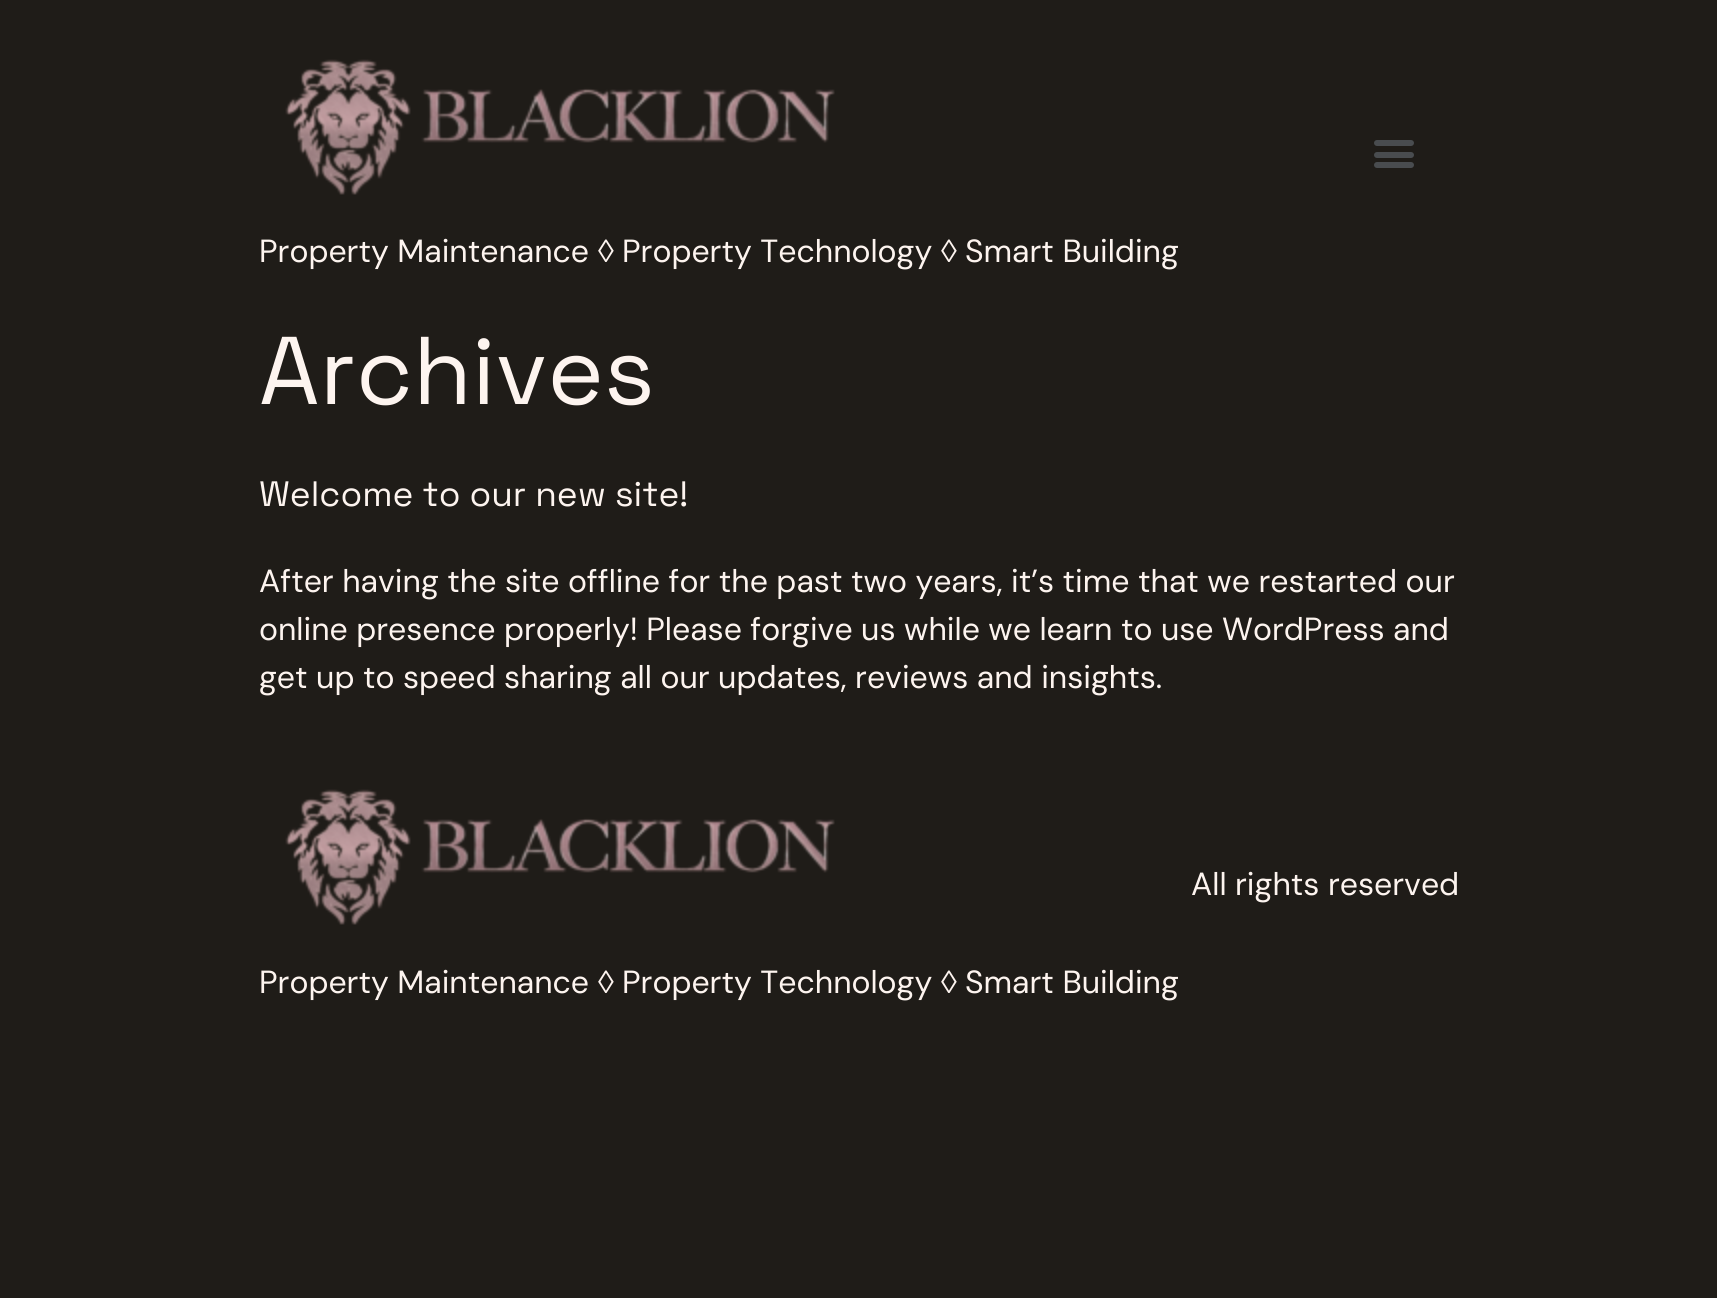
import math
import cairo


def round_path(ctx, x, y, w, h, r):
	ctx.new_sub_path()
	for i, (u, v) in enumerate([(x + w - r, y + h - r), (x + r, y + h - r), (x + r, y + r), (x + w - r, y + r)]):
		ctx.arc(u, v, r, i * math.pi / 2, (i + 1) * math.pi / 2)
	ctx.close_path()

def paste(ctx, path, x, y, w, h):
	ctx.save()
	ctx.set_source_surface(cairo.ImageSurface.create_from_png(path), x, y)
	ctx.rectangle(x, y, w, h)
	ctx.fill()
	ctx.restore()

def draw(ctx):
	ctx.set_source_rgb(0.122, 0.11, 0.094)
	ctx.paint()
	ctx.set_source_rgb(0.286, 0.298, 0.31)
	round_path(ctx, 1374, 152, 40, 6, 3)
	ctx.fill()
	round_path(ctx, 1374, 140, 40, 6, 3)
	ctx.fill()
	round_path(ctx, 1374, 162, 40, 6, 3)
	ctx.fill()
	paste(ctx, 'media/1.png', 285, 59, 550, 136)
	ctx.select_font_face('DM Sans')
	ctx.set_font_size(32)
	ctx.set_source_rgb(0.992, 0.957, 0.937)
	ctx.move_to(259, 262)
	ctx.show_text('Property Maintenance')
	ctx.select_font_face('Liberation Sans')
	ctx.move_to(598, 262)
	ctx.show_text('◊')
	ctx.select_font_face('DM Sans')
	ctx.move_to(622, 262)
	ctx.show_text('Property Technology')
	ctx.select_font_face('Liberation Sans')
	ctx.move_to(941, 262)
	ctx.show_text('◊')
	ctx.select_font_face('DM Sans')
	ctx.move_to(965, 262)
	ctx.show_text('Smart Building')
	ctx.select_font_face('Space Grotesk')
	ctx.set_font_size(96)
	ctx.move_to(259, 404)
	ctx.show_text('Archives')
	ctx.set_font_size(35.25)
	ctx.move_to(259, 506)
	ctx.show_text('Welcome to our new site!')
	ctx.select_font_face('DM Sans')
	ctx.set_font_size(32)
	for x, y, s in [
		(259, 592, 'After having the site offline for the past two years, it’s time that we restarted our'),
		(259, 640, 'online presence properly! Please forgive us while we learn to use WordPress and'),
		(259, 688, 'get up to speed sharing all our updates, reviews and insights.'),
		(1191, 895, 'All rights reserved'),
	]:
		ctx.move_to(x, y)
		ctx.show_text(s)
	paste(ctx, 'media/1.png', 285, 789, 550, 136)
	ctx.move_to(259, 993)
	ctx.show_text('Property Maintenance')
	ctx.select_font_face('Liberation Sans')
	ctx.move_to(598, 993)
	ctx.show_text('◊')
	ctx.select_font_face('DM Sans')
	ctx.move_to(622, 993)
	ctx.show_text('Property Technology')
	ctx.select_font_face('Liberation Sans')
	ctx.move_to(941, 993)
	ctx.show_text('◊')
	ctx.select_font_face('DM Sans')
	ctx.move_to(965, 993)
	ctx.show_text('Smart Building')


surface = cairo.ImageSurface(cairo.FORMAT_RGB24, 1717, 1298)
ctx = cairo.Context(surface)
options = cairo.FontOptions()
options.set_hint_metrics(cairo.HINT_METRICS_OFF)
options.set_hint_style(cairo.HINT_STYLE_NONE)
ctx.set_font_options(options)
ctx.set_miter_limit(4)
draw(ctx)
surface.write_to_png('image.png')
